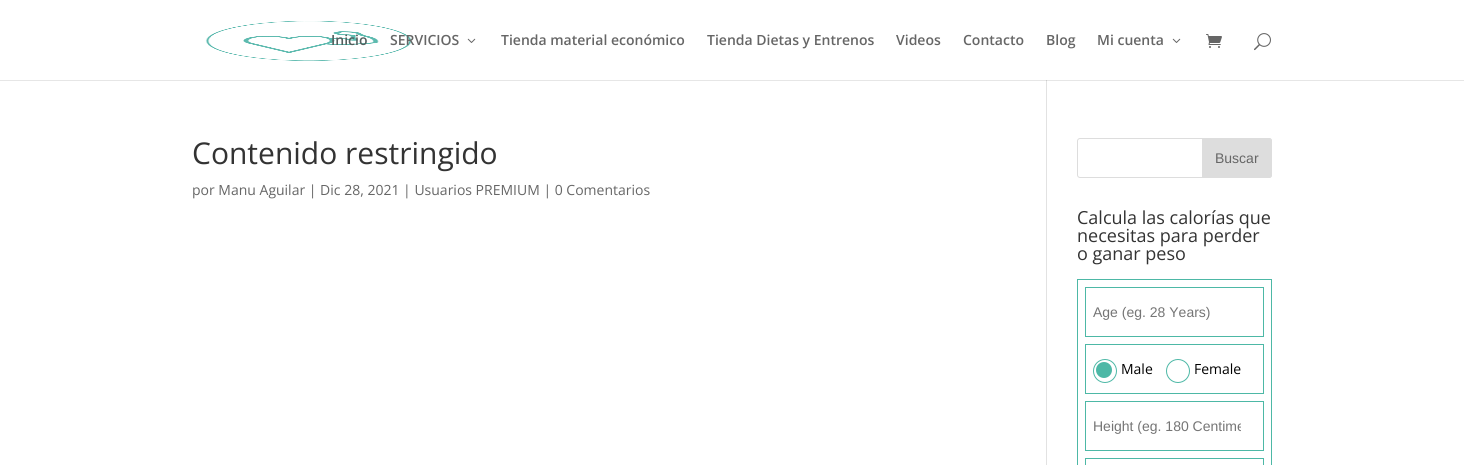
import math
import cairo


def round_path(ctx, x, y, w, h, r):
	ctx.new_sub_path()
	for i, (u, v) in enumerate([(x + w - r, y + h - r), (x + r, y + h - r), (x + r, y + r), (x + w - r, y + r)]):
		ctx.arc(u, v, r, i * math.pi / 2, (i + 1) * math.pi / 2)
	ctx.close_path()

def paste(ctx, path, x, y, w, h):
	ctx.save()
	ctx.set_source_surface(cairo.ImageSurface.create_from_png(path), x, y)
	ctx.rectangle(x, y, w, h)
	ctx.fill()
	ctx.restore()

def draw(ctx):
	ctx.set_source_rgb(1, 1, 1)
	ctx.paint()
	ctx.set_source_rgb(0.902, 0.902, 0.902)
	ctx.rectangle(0, 80, 1464, 1)
	ctx.fill()
	paste(ctx, 'media/1.png', 205, 21, 207, 40)
	ctx.select_font_face('Open Sans SemiBold')
	ctx.set_font_size(14)
	ctx.set_source_rgb(0.325, 0.369, 0.365)
	ctx.move_to(331, 45)
	ctx.show_text('Inicio')
	ctx.set_source_rgb(0.4, 0.4, 0.4)
	ctx.move_to(390, 45)
	ctx.show_text('SERVICIOS')
	paste(ctx, 'media/2.png', 467, 38, 9, 5)
	for x, y, s in [
		(501, 45, 'Tienda material económico'),
		(707, 45, 'Tienda Dietas y Entrenos'),
		(896, 45, 'Videos'),
		(963, 45, 'Contacto'),
		(1046, 45, 'Blog'),
		(1097, 45, 'Mi cuenta'),
	]:
		ctx.move_to(x, y)
		ctx.show_text(s)
	paste(ctx, 'media/2.png', 1172, 38, 9, 5)
	paste(ctx, 'media/3.png', 1206, 34, 16, 14)
	paste(ctx, 'media/4.png', 1254, 33, 17, 18)
	ctx.set_source_rgb(0.886, 0.886, 0.886)
	ctx.rectangle(1046, 80, 1, 385)
	ctx.fill()
	ctx.set_source_rgb(0.796, 0.796, 0.796)
	ctx.rectangle(1046, 80, 1, 1)
	ctx.fill()
	ctx.select_font_face('Open Sans')
	ctx.set_font_size(30)
	ctx.set_source_rgb(0.2, 0.2, 0.2)
	ctx.move_to(192, 164)
	ctx.show_text('Contenido restringido')
	ctx.set_font_size(14)
	ctx.set_source_rgb(0.4, 0.4, 0.4)
	ctx.move_to(192, 195)
	ctx.show_text('por Manu Aguilar | Dic 28, 2021 | Usuarios PREMIUM | 0 Comentarios')
	round_path(ctx, 1077.5, 138.5, 194, 39, 2.5)
	ctx.set_source_rgb(0.867, 0.867, 0.867)
	ctx.set_line_width(1)
	ctx.stroke()
	ctx.new_path()
	ctx.move_to(1202.5, 138.5)
	ctx.line_to(1269, 138.5)
	ctx.curve_to(1270.5, 138.5, 1271.5, 139.5, 1271.5, 141)
	ctx.line_to(1271.5, 175)
	ctx.curve_to(1271.5, 176.5, 1270.5, 177.5, 1269, 177.5)
	ctx.line_to(1202.5, 177.5)
	ctx.close_path()
	ctx.fill_preserve()
	ctx.stroke()
	ctx.select_font_face('Liberation Sans')
	ctx.set_source_rgb(0.4, 0.4, 0.4)
	ctx.move_to(1215, 163)
	ctx.show_text('Buscar')
	ctx.select_font_face('Open Sans')
	ctx.set_font_size(18)
	ctx.set_source_rgb(0.2, 0.2, 0.2)
	for x, y, s in [
		(1077, 224, 'Calcula las calorías que'),
		(1077, 242, 'necesitas para perder'),
		(1077, 260, 'o ganar peso'),
	]:
		ctx.move_to(x, y)
		ctx.show_text(s)
	ctx.rectangle(1077.5, 279.5, 194, 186)
	ctx.set_source_rgb(0.302, 0.722, 0.651)
	ctx.stroke()
	ctx.rectangle(1085.5, 287.5, 178, 49)
	ctx.stroke()
	ctx.select_font_face('Liberation Sans')
	ctx.set_font_size(14)
	ctx.set_source_rgb(0.459, 0.459, 0.459)
	ctx.move_to(1093, 317)
	ctx.show_text('Age (eg. 28 Years)')
	ctx.rectangle(1085.5, 344.5, 178, 49)
	ctx.set_source_rgb(0.302, 0.722, 0.651)
	ctx.stroke()
	ctx.arc(1105, 371, 11.5, 0, 2 * math.pi)
	ctx.stroke()
	ctx.arc(1104, 370, 8, 0, 2 * math.pi)
	ctx.fill()
	ctx.select_font_face('Open Sans')
	ctx.set_source_rgb(0, 0, 0)
	ctx.move_to(1121, 374)
	ctx.show_text('Male')
	ctx.new_path()
	ctx.arc(1178, 371, 11.5, 0, 2 * math.pi)
	ctx.set_source_rgb(0.302, 0.722, 0.651)
	ctx.stroke()
	ctx.set_source_rgb(0, 0, 0)
	ctx.move_to(1194, 374)
	ctx.show_text('Female')
	ctx.rectangle(1085.5, 401.5, 178, 49)
	ctx.set_source_rgb(0.302, 0.722, 0.651)
	ctx.stroke()
	ctx.save()
	ctx.rectangle(1093, 418, 148, 16)
	ctx.clip()
	ctx.select_font_face('Liberation Sans')
	ctx.set_source_rgb(0.459, 0.459, 0.459)
	ctx.move_to(1093, 431)
	ctx.show_text('Height (eg. 180 Centime')
	ctx.restore()
	ctx.rectangle(1085.5, 458.5, 178, 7)
	ctx.stroke()


surface = cairo.ImageSurface(cairo.FORMAT_RGB24, 1464, 465)
ctx = cairo.Context(surface)
options = cairo.FontOptions()
options.set_hint_metrics(cairo.HINT_METRICS_OFF)
options.set_hint_style(cairo.HINT_STYLE_NONE)
ctx.set_font_options(options)
ctx.set_miter_limit(4)
draw(ctx)
surface.write_to_png('image.png')
